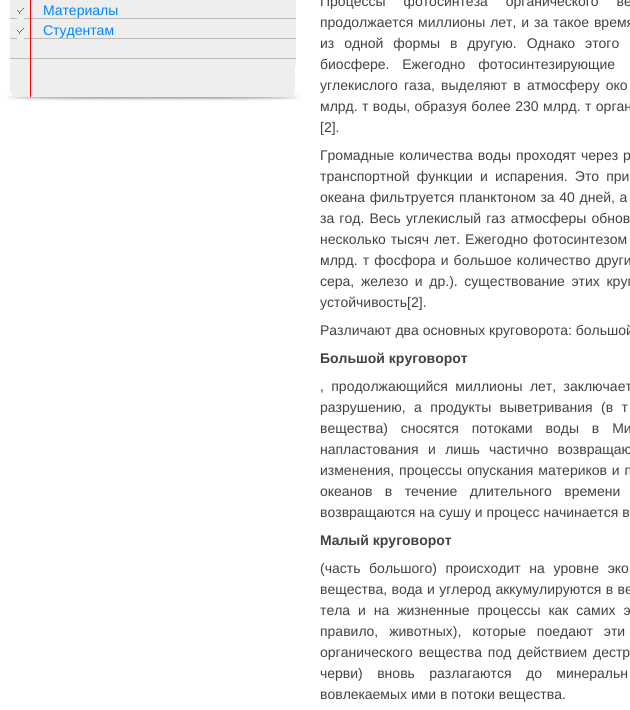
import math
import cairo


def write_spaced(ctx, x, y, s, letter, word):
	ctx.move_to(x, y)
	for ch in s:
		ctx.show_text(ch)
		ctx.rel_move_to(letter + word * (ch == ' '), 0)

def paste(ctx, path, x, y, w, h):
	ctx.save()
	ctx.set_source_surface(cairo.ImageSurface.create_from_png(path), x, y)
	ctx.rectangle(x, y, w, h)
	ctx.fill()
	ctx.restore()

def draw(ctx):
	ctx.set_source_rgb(1, 1, 1)
	ctx.paint()
	paste(ctx, 'media/1.png', 10, 0, 286, 66)
	paste(ctx, 'media/2.png', 6, 66, 295, 36)
	paste(ctx, 'media/3.png', 17, 8, 7, 11)
	ctx.select_font_face('Liberation Sans')
	ctx.set_font_size(14)
	ctx.set_source_rgb(0, 0.518, 1)
	ctx.move_to(43, 15)
	ctx.show_text('Материалы')
	paste(ctx, 'media/3.png', 17, 28, 7, 11)
	ctx.move_to(43, 35)
	ctx.show_text('Студентам')
	ctx.set_source_rgb(0.259, 0.259, 0.259)
	write_spaced(ctx, 320, 6, 'Процессы фотосинтеза органического ве', 0, 14)
	write_spaced(ctx, 320, 27, 'продолжается миллионы лет, и за такое время', 0, 1)
	write_spaced(ctx, 320, 48, 'из одной формы в другую. Однако этого', 0, 6)
	write_spaced(ctx, 320, 69, 'биосфере. Ежегодно фотосинтезирующие', 0, 9)
	write_spaced(ctx, 320, 90, 'углекислого газа, выделяют в атмосферу око', 0, 2.25)
	write_spaced(ctx, 320, 111, 'млрд. т воды, образуя более 230 млрд. т орган', 0, 0.5)
	ctx.move_to(320, 132)
	ctx.show_text('[2].')
	write_spaced(ctx, 320, 160, 'Громадные количества воды проходят через р', 0, 1)
	write_spaced(ctx, 320, 181, 'транспортной функции и испарения. Это при', 0, 3.25)
	write_spaced(ctx, 320, 202, 'океана фильтруется планктоном за 40 дней, а', 0, 0.75)
	write_spaced(ctx, 320, 223, 'за год. Весь углекислый газ атмосферы обнов', 0, 1.25)
	write_spaced(ctx, 320, 244, 'несколько тысяч лет. Ежегодно фотосинтезом', 0, 1)
	write_spaced(ctx, 320, 265, 'млрд. т фосфора и большое количество други', 0, 1.25)
	write_spaced(ctx, 320, 286, 'сера, железо и др.). существование этих круг', 0, 2.75)
	ctx.move_to(320, 307)
	ctx.show_text('устойчивость[2].')
	ctx.move_to(320, 335)
	ctx.show_text('Различают два основных круговорота: большой')
	ctx.select_font_face('Liberation Sans', cairo.FONT_SLANT_NORMAL, cairo.FONT_WEIGHT_BOLD)
	ctx.move_to(320, 363)
	ctx.show_text('Большой круговорот')
	ctx.select_font_face('Liberation Sans')
	write_spaced(ctx, 320, 391, ', продолжающийся миллионы лет, заключает', 0, 3.5)
	write_spaced(ctx, 320, 412, 'разрушению, а продукты выветривания (в т', 0, 4.5)
	write_spaced(ctx, 320, 433, 'вещества) сносятся потоками воды в Ми', 0, 9)
	write_spaced(ctx, 320, 454, 'напластования и лишь частично возвращаю', 0, 5.5)
	write_spaced(ctx, 320, 475, 'изменения, процессы опускания материков и п', 0, 1)
	write_spaced(ctx, 320, 496, 'океанов в течение длительного времени', 0, 8.5)
	ctx.move_to(320, 517)
	ctx.show_text('возвращаются на сушу и процесс начинается в')
	ctx.select_font_face('Liberation Sans', cairo.FONT_SLANT_NORMAL, cairo.FONT_WEIGHT_BOLD)
	ctx.move_to(320, 545)
	ctx.show_text('Малый круговорот')
	ctx.select_font_face('Liberation Sans')
	write_spaced(ctx, 320, 573, '(часть большого) происходит на уровне эко', 0, 4.75)
	write_spaced(ctx, 320, 594, 'вещества, вода и углерод аккумулируются в ве', 0, 0.5)
	write_spaced(ctx, 320, 615, 'тела и на жизненные процессы как самих э', 0, 4)
	write_spaced(ctx, 320, 636, 'правило, животных), которые поедают эти', 0, 7)
	write_spaced(ctx, 320, 657, 'органического вещества под действием дестр', 0, 2)
	write_spaced(ctx, 320, 678, 'черви) вновь разлагаются до минеральн', 0, 10.5)
	ctx.move_to(320, 699)
	ctx.show_text('вовлекаемых ими в потоки вещества.')


surface = cairo.ImageSurface(cairo.FORMAT_RGB24, 630, 710)
ctx = cairo.Context(surface)
options = cairo.FontOptions()
options.set_hint_metrics(cairo.HINT_METRICS_OFF)
options.set_hint_style(cairo.HINT_STYLE_NONE)
ctx.set_font_options(options)
ctx.set_miter_limit(4)
draw(ctx)
surface.write_to_png('image.png')
